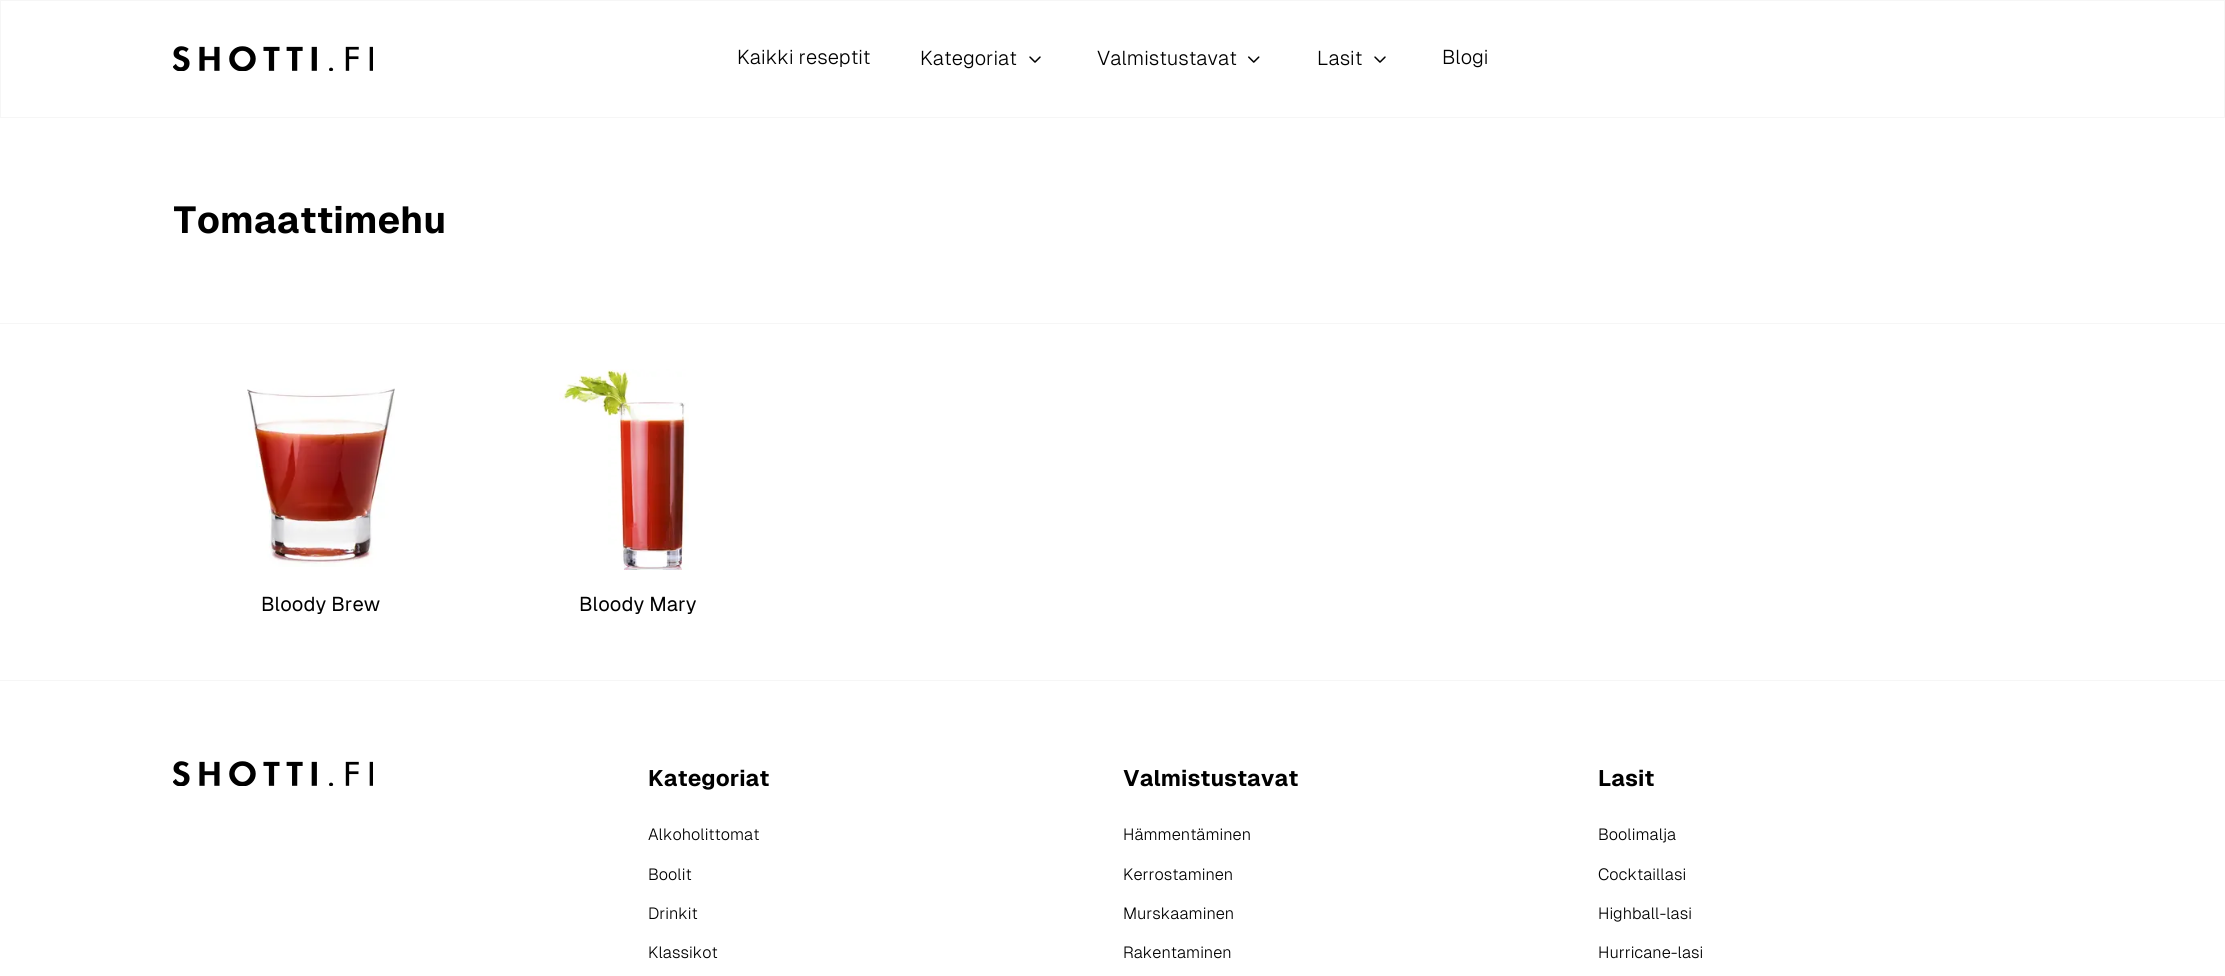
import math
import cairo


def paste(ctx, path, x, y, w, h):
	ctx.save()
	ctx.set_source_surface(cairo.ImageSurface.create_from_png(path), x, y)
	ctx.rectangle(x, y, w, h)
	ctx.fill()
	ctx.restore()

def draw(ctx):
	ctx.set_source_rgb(1, 1, 1)
	ctx.paint()
	ctx.rectangle(0.5, 0.5, 2224, 117)
	ctx.set_source_rgb(0.961, 0.961, 0.961)
	ctx.set_line_width(1)
	ctx.stroke()
	paste(ctx, 'media/1.png', 173, 46, 200, 25)
	ctx.select_font_face('Geist Light')
	ctx.set_font_size(20)
	ctx.set_source_rgb(0, 0, 0)
	ctx.move_to(737, 64)
	ctx.show_text('Kaikki reseptit')
	ctx.move_to(920, 65)
	ctx.show_text('Kategoriat')
	paste(ctx, 'media/2.png', 1029, 56, 12, 7)
	ctx.move_to(1097, 65)
	ctx.show_text('Valmistustavat')
	paste(ctx, 'media/3.png', 1248, 56, 12, 7)
	ctx.move_to(1317, 65)
	ctx.show_text('Lasit')
	paste(ctx, 'media/2.png', 1374, 56, 12, 7)
	ctx.move_to(1442, 64)
	ctx.show_text('Blogi')
	ctx.set_source_rgb(0.961, 0.961, 0.961)
	ctx.rectangle(0, 323, 2225, 1)
	ctx.fill()
	ctx.select_font_face('Geist', cairo.FONT_SLANT_NORMAL, cairo.FONT_WEIGHT_BOLD)
	ctx.set_font_size(37.5)
	ctx.set_source_rgb(0, 0, 0)
	ctx.move_to(173, 233)
	ctx.show_text('Tomaattimehu')
	paste(ctx, 'media/4.png', 247, 388, 148, 179)
	ctx.select_font_face('Geist')
	ctx.set_font_size(20)
	ctx.move_to(261, 611)
	ctx.show_text('Bloody Brew')
	paste(ctx, 'media/5.png', 559, 369, 130, 201)
	ctx.move_to(579, 611)
	ctx.show_text('Bloody Mary')
	ctx.set_source_rgb(0.961, 0.961, 0.961)
	ctx.rectangle(0, 680, 2225, 1)
	ctx.fill()
	paste(ctx, 'media/1.png', 173, 761, 200, 25)
	ctx.select_font_face('Geist', cairo.FONT_SLANT_NORMAL, cairo.FONT_WEIGHT_BOLD)
	ctx.set_font_size(22.5)
	ctx.set_source_rgb(0, 0, 0)
	ctx.move_to(648, 786)
	ctx.show_text('Kategoriat')
	ctx.select_font_face('Geist Light')
	ctx.set_font_size(16.25)
	for x, y, s in [
		(648, 840, 'Alkoholittomat'),
		(648, 880, 'Boolit'),
		(648, 919, 'Drinkit'),
		(648, 958, 'Klassikot'),
	]:
		ctx.move_to(x, y)
		ctx.show_text(s)
	ctx.select_font_face('Geist', cairo.FONT_SLANT_NORMAL, cairo.FONT_WEIGHT_BOLD)
	ctx.set_font_size(22.5)
	ctx.move_to(1123, 786)
	ctx.show_text('Valmistustavat')
	ctx.select_font_face('Geist Light')
	ctx.set_font_size(16.25)
	for x, y, s in [
		(1123, 840, 'Hämmentäminen'),
		(1123, 880, 'Kerrostaminen'),
		(1123, 919, 'Murskaaminen'),
		(1123, 958, 'Rakentaminen'),
	]:
		ctx.move_to(x, y)
		ctx.show_text(s)
	ctx.select_font_face('Geist', cairo.FONT_SLANT_NORMAL, cairo.FONT_WEIGHT_BOLD)
	ctx.set_font_size(22.5)
	ctx.move_to(1598, 786)
	ctx.show_text('Lasit')
	ctx.select_font_face('Geist Light')
	ctx.set_font_size(16.25)
	for x, y, s in [
		(1598, 840, 'Boolimalja'),
		(1598, 880, 'Cocktaillasi'),
		(1598, 919, 'Highball-lasi'),
		(1598, 958, 'Hurricane-lasi'),
	]:
		ctx.move_to(x, y)
		ctx.show_text(s)


surface = cairo.ImageSurface(cairo.FORMAT_RGB24, 2225, 976)
ctx = cairo.Context(surface)
options = cairo.FontOptions()
options.set_hint_metrics(cairo.HINT_METRICS_OFF)
options.set_hint_style(cairo.HINT_STYLE_NONE)
ctx.set_font_options(options)
ctx.set_miter_limit(4)
draw(ctx)
surface.write_to_png('image.png')
